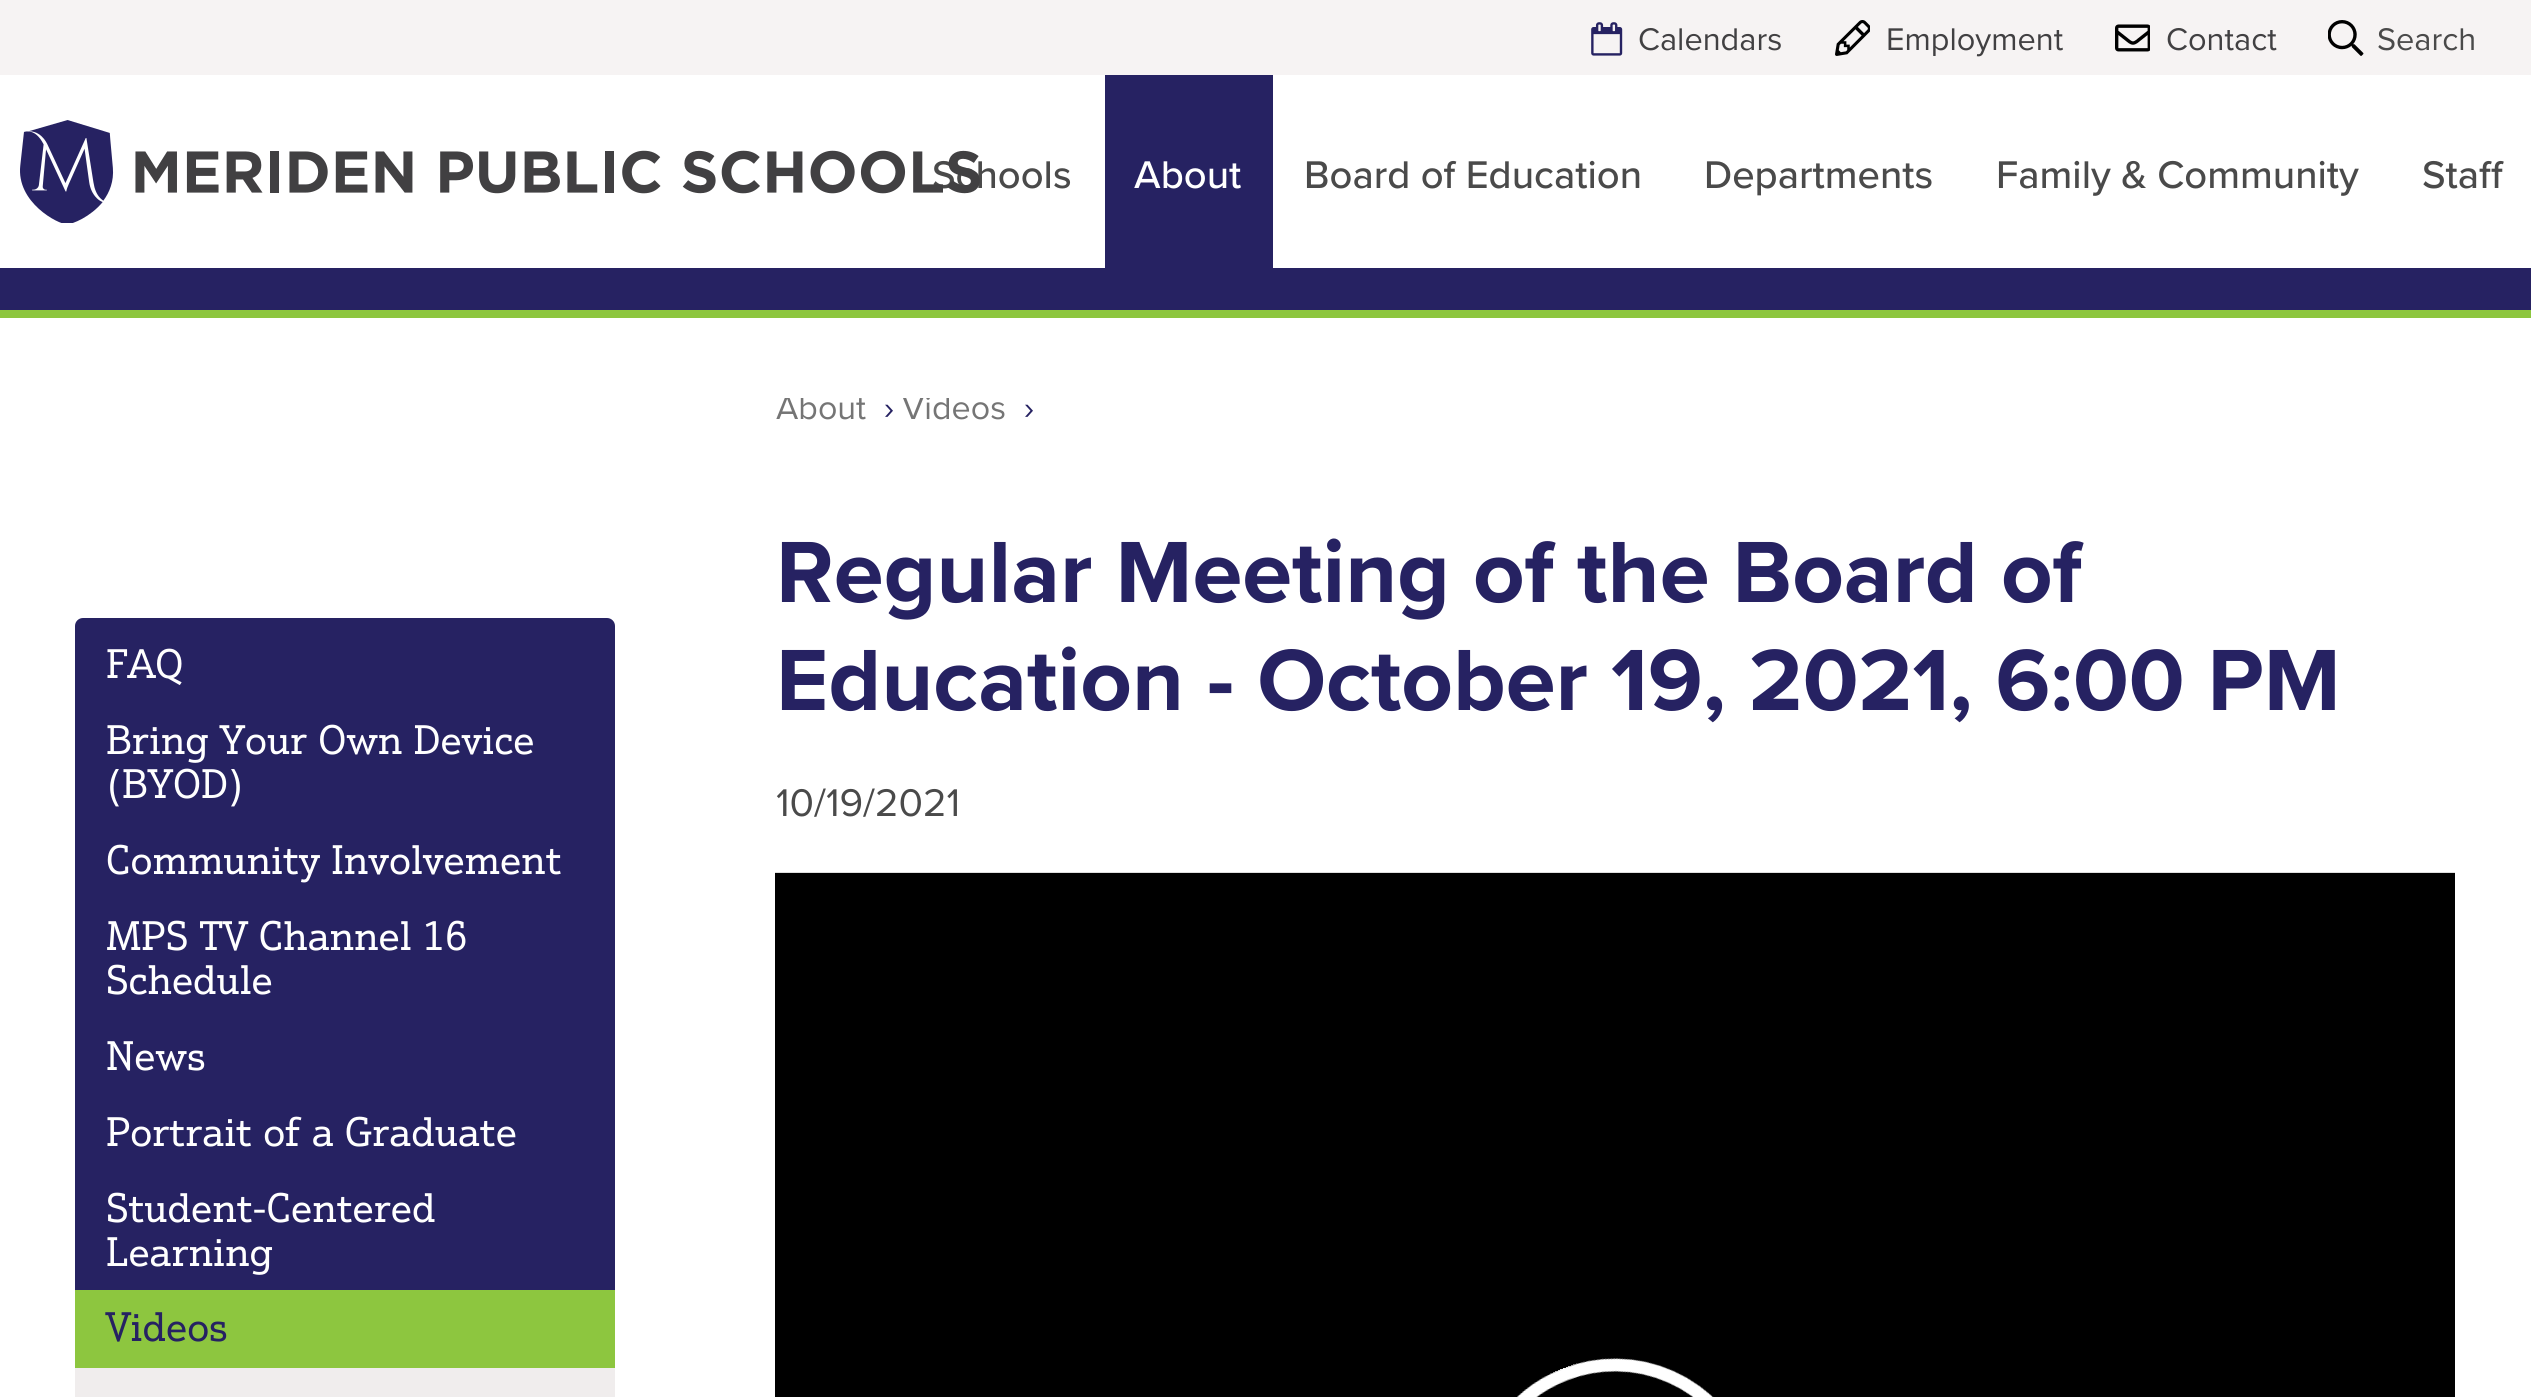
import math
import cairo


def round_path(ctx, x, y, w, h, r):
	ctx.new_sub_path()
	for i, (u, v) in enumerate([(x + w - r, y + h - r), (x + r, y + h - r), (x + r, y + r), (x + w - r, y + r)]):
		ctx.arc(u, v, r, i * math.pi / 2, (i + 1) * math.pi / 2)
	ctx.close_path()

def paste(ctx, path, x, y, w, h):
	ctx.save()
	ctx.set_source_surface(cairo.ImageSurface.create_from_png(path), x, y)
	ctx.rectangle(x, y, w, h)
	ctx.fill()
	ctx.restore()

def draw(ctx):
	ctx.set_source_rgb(0.149, 0.133, 0.384)
	ctx.paint()
	ctx.set_source_rgb(1, 1, 1)
	ctx.rectangle(0, 75, 2531, 193)
	ctx.fill()
	ctx.select_font_face('Proxima Nova Medium')
	ctx.set_font_size(40)
	ctx.set_source_rgb(0.29, 0.29, 0.29)
	ctx.move_to(932, 188)
	ctx.show_text('Schools')
	paste(ctx, 'media/1.png', 20, 120, 960, 103)
	ctx.set_source_rgb(0.961, 0.953, 0.953)
	ctx.rectangle(0, 0, 2531, 75)
	ctx.fill()
	paste(ctx, 'media/2.png', 1591, 22, 32, 34)
	ctx.select_font_face('Proxima Nova')
	ctx.set_font_size(32.5)
	ctx.set_source_rgb(0.255, 0.251, 0.259)
	ctx.move_to(1638, 50)
	ctx.show_text('Calendars')
	paste(ctx, 'media/3.png', 1835, 20, 35, 36)
	ctx.move_to(1886, 50)
	ctx.show_text('Employment')
	paste(ctx, 'media/4.png', 2115, 24, 35, 28)
	ctx.move_to(2166, 50)
	ctx.show_text('Contact')
	paste(ctx, 'media/5.png', 2328, 20, 36, 36)
	ctx.set_source_rgb(0.29, 0.29, 0.29)
	ctx.move_to(2377, 50)
	ctx.show_text('Search')
	ctx.set_source_rgb(0.149, 0.133, 0.384)
	ctx.rectangle(1105, 75, 168, 193)
	ctx.fill()
	ctx.select_font_face('Proxima Nova Medium')
	ctx.set_font_size(40)
	ctx.set_source_rgb(1, 1, 1)
	ctx.move_to(1134, 188)
	ctx.show_text('About')
	ctx.set_source_rgb(0.29, 0.29, 0.29)
	for x, y, s in [
		(1304, 188, 'Board of Education'),
		(1704, 188, 'Departments'),
		(1996, 188, 'Family & Community'),
		(2422, 188, 'Staff'),
	]:
		ctx.move_to(x, y)
		ctx.show_text(s)
	ctx.set_source_rgb(0.553, 0.776, 0.247)
	ctx.rectangle(0, 310, 2531, 8)
	ctx.fill()
	ctx.set_source_rgb(1, 1, 1)
	ctx.rectangle(0, 318, 2531, 1079)
	ctx.fill()
	ctx.set_source_rgb(0.149, 0.133, 0.384)
	round_path(ctx, 75, 618, 540, 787, 8)
	ctx.fill()
	ctx.select_font_face('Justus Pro')
	ctx.set_source_rgb(1, 1, 1)
	for x, y, s in [
		(106, 678, 'FAQ'),
		(106, 754, 'Bring Your Own Device'),
		(106, 798, '(BYOD)'),
		(106, 874, 'Community Involvement'),
		(106, 950, 'MPS TV Channel 16'),
		(106, 994, 'Schedule'),
		(106, 1070, 'News'),
		(106, 1146, 'Portrait of a Graduate'),
		(106, 1222, 'Student-Centered'),
		(106, 1266, 'Learning'),
	]:
		ctx.move_to(x, y)
		ctx.show_text(s)
	ctx.set_source_rgb(0.553, 0.776, 0.247)
	ctx.rectangle(75, 1290, 540, 78)
	ctx.fill()
	ctx.set_source_rgb(0.149, 0.133, 0.384)
	ctx.move_to(106, 1341)
	ctx.show_text('Videos')
	ctx.set_source_rgb(0.941, 0.929, 0.929)
	ctx.rectangle(75, 1368, 540, 29)
	ctx.fill()
	ctx.save()
	ctx.rectangle(775, 398, 1683, 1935)
	ctx.clip()
	ctx.select_font_face('Proxima Nova')
	ctx.set_font_size(34)
	ctx.set_source_rgb(0.459, 0.459, 0.459)
	ctx.move_to(776, 419)
	ctx.show_text('About')
	ctx.restore()
	ctx.select_font_face('Proxima Nova')
	ctx.set_font_size(34)
	ctx.set_source_rgb(0.149, 0.133, 0.384)
	ctx.move_to(884, 419)
	ctx.show_text('›')
	ctx.save()
	ctx.rectangle(775, 398, 1683, 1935)
	ctx.clip()
	ctx.set_source_rgb(0.459, 0.459, 0.459)
	ctx.move_to(902, 419)
	ctx.show_text('Videos')
	ctx.restore()
	ctx.move_to(1024, 419)
	ctx.show_text('›')
	ctx.select_font_face('Proxima Nova', cairo.FONT_SLANT_NORMAL, cairo.FONT_WEIGHT_BOLD)
	ctx.set_font_size(90)
	ctx.move_to(776, 602)
	ctx.show_text('Regular Meeting of the Board of')
	ctx.move_to(776, 710)
	ctx.show_text('Education - October 19, 2021, 6:00 PM')
	ctx.select_font_face('Proxima Nova')
	ctx.set_font_size(40)
	ctx.set_source_rgb(0.29, 0.29, 0.29)
	ctx.move_to(776, 816)
	ctx.show_text('10/19/2021')
	paste(ctx, 'media/6.png', 775, 872, 1680, 525)


surface = cairo.ImageSurface(cairo.FORMAT_RGB24, 2531, 1397)
ctx = cairo.Context(surface)
options = cairo.FontOptions()
options.set_hint_metrics(cairo.HINT_METRICS_OFF)
options.set_hint_style(cairo.HINT_STYLE_NONE)
ctx.set_font_options(options)
ctx.set_miter_limit(4)
draw(ctx)
surface.write_to_png('image.png')
